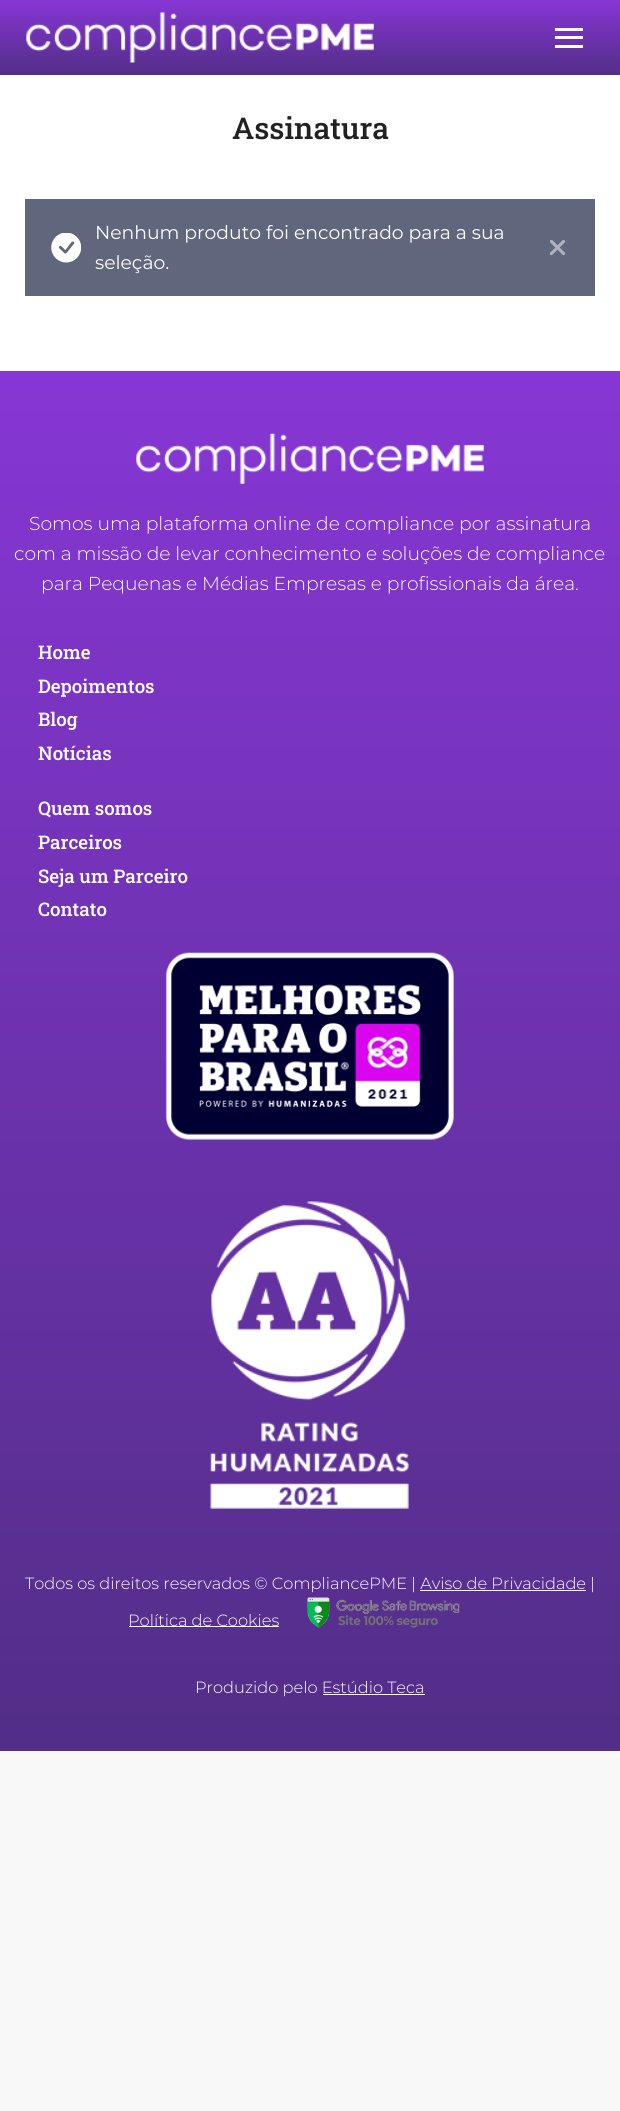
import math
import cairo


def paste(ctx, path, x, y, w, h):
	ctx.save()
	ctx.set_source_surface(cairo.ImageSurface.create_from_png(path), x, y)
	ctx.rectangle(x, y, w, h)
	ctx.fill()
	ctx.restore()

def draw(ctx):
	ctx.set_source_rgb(0.969, 0.969, 0.969)
	ctx.paint()
	ctx.set_source_rgb(1, 1, 1)
	ctx.rectangle(0, 75, 620, 296)
	ctx.fill()
	gradient = cairo.LinearGradient(310, 75, 310, 0)
	gradient.add_color_stop_rgba(0, 0.322, 0.18, 0.529, 1)
	gradient.add_color_stop_rgba(1, 0.529, 0.212, 0.835, 1)
	ctx.set_source(gradient)
	ctx.rectangle(0, 0, 620, 75)
	ctx.fill()
	paste(ctx, 'media/1.png', 26, 12, 348, 51)
	ctx.set_source_rgb(1, 1, 1)
	ctx.rectangle(555, 28, 28, 3)
	ctx.rectangle(555, 36, 28, 3)
	ctx.rectangle(555, 45, 28, 3)
	ctx.fill()
	ctx.select_font_face('Roboto Slab Medium')
	ctx.set_font_size(30)
	ctx.set_source_rgb(0.133, 0.133, 0.133)
	ctx.move_to(232, 139)
	ctx.show_text('Assinatura')
	ctx.set_source_rgb(0.376, 0.4, 0.482)
	ctx.rectangle(25, 199, 570, 97)
	ctx.fill()
	paste(ctx, 'media/2.png', 51, 233, 30, 30)
	ctx.select_font_face('Montserrat')
	ctx.set_font_size(18.75)
	ctx.set_source_rgb(1, 1, 1)
	ctx.move_to(95, 239)
	ctx.show_text('Nenhum produto foi encontrado para a sua')
	ctx.move_to(95, 269)
	ctx.show_text('seleção.')
	paste(ctx, 'media/3.png', 549, 239, 17, 17)
	gradient = cairo.LinearGradient(310, 1751, 310, 371)
	gradient.add_color_stop_rgba(0, 0.322, 0.18, 0.529, 1)
	gradient.add_color_stop_rgba(1, 0.529, 0.212, 0.835, 1)
	ctx.set_source(gradient)
	ctx.rectangle(0, 371, 620, 1380)
	ctx.fill()
	paste(ctx, 'media/4.png', 136, 433, 348, 51)
	ctx.select_font_face('Montserrat Light')
	ctx.set_source_rgb(1, 1, 1)
	for x, y, s in [
		(29, 530, 'Somos uma plataforma online de compliance por assinatura'),
		(14, 560, 'com a missão de levar conhecimento e soluções de compliance'),
		(41, 590, 'para Pequenas e Médias Empresas e profissionais da área.'),
	]:
		ctx.move_to(x, y)
		ctx.show_text(s)
	ctx.select_font_face('Roboto Slab Medium')
	for x, y, s in [
		(38, 659, 'Home'),
		(38, 693, 'Depoimentos'),
		(38, 726, 'Blog'),
		(38, 760, 'Notícias'),
		(38, 815, 'Quem somos'),
		(38, 849, 'Parceiros'),
		(38, 883, 'Seja um Parceiro'),
		(38, 916, 'Contato'),
	]:
		ctx.move_to(x, y)
		ctx.show_text(s)
	paste(ctx, 'media/5.png', 165, 952, 289, 188)
	paste(ctx, 'media/6.png', 209, 1201, 201, 308)
	ctx.select_font_face('Montserrat Light')
	ctx.set_font_size(16.25)
	ctx.move_to(25, 1589)
	ctx.show_text('Todos os direitos reservados © CompliancePME | Aviso de Privacidade |')
	ctx.rectangle(420, 1590, 166, 1)
	ctx.fill()
	ctx.rectangle(129, 1626, 150, 1)
	ctx.fill()
	ctx.move_to(128, 1626)
	ctx.show_text('Política de Cookies')
	paste(ctx, 'media/7.png', 307, 1597, 153, 31)
	ctx.move_to(195, 1693)
	ctx.show_text('Produzido pelo Estúdio Teca')
	ctx.rectangle(323, 1694, 102, 1)
	ctx.fill()


surface = cairo.ImageSurface(cairo.FORMAT_RGB24, 620, 2111)
ctx = cairo.Context(surface)
options = cairo.FontOptions()
options.set_hint_metrics(cairo.HINT_METRICS_OFF)
options.set_hint_style(cairo.HINT_STYLE_NONE)
ctx.set_font_options(options)
ctx.set_miter_limit(4)
draw(ctx)
surface.write_to_png('image.png')
